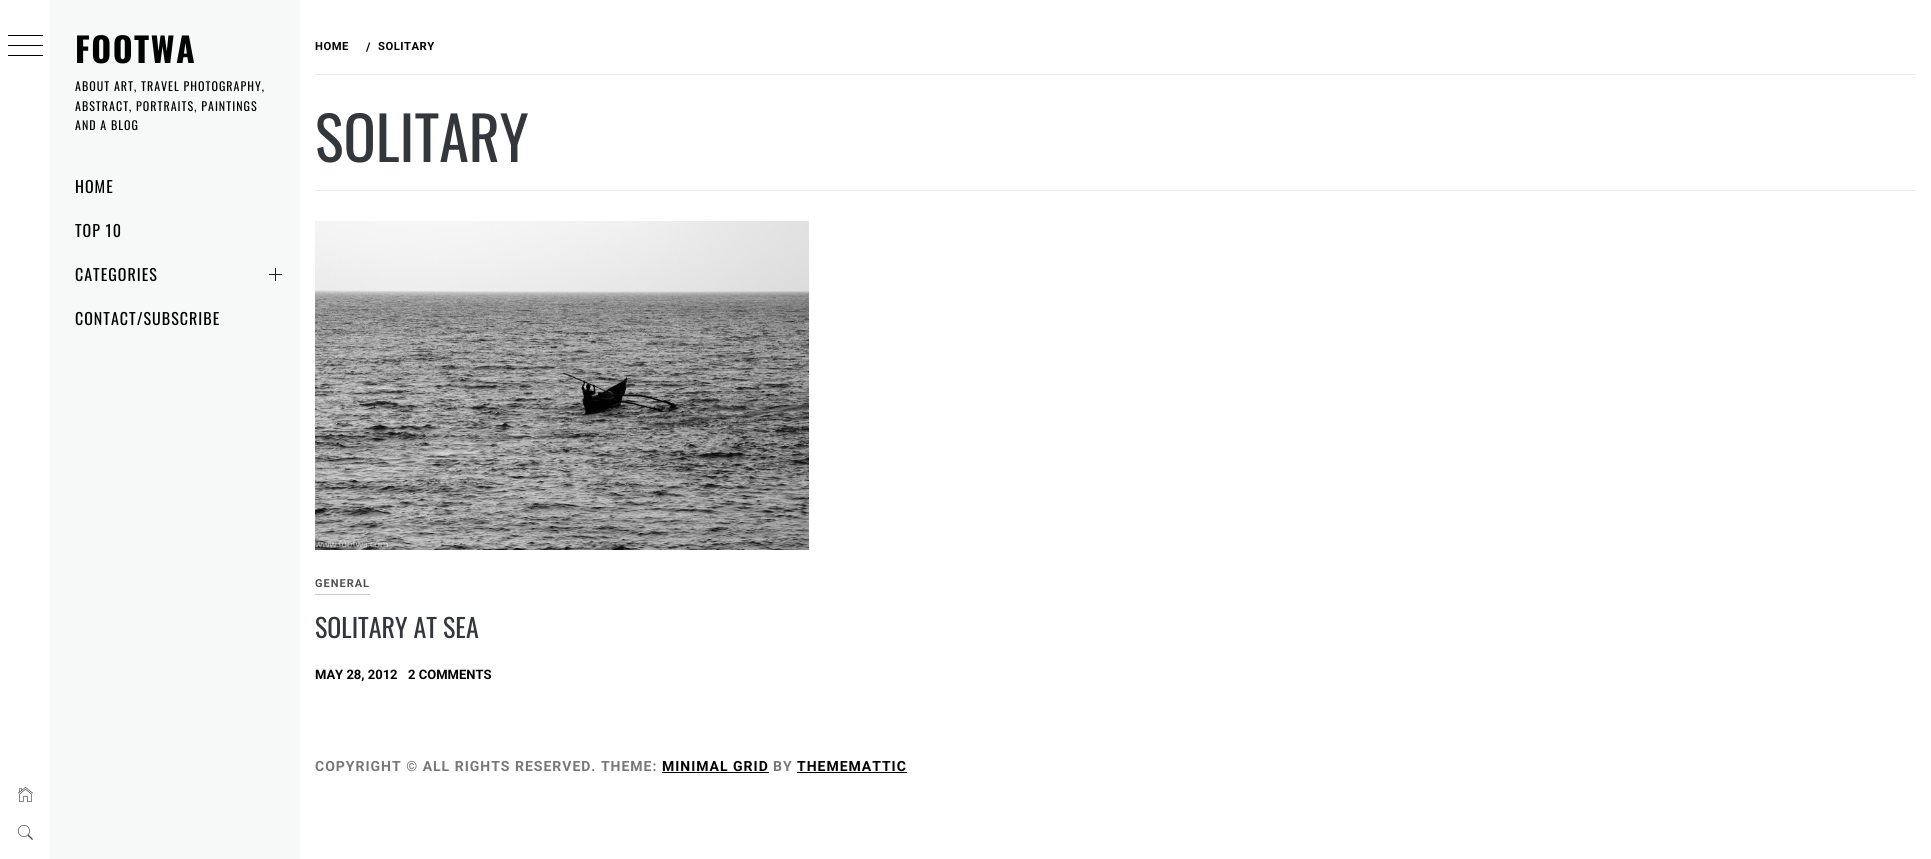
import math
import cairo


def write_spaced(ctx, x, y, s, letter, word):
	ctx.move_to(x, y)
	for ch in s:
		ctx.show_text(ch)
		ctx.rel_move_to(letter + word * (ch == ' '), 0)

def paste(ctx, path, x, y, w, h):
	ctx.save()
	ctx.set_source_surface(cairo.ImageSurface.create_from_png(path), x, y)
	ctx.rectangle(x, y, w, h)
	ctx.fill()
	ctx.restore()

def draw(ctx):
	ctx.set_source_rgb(1, 1, 1)
	ctx.paint()
	ctx.set_source_rgb(0, 0, 0)
	ctx.rectangle(8, 35, 35, 1)
	ctx.rectangle(8, 45, 35, 1)
	ctx.rectangle(8, 55, 35, 1)
	ctx.fill()
	paste(ctx, 'media/1.png', 18, 787, 15, 15)
	paste(ctx, 'media/2.png', 18, 825, 15, 15)
	ctx.set_source_rgb(0.965, 0.973, 0.976)
	ctx.rectangle(50, 0, 250, 859)
	ctx.fill()
	ctx.select_font_face('Oswald', cairo.FONT_SLANT_NORMAL, cairo.FONT_WEIGHT_BOLD)
	ctx.set_font_size(34)
	ctx.set_source_rgb(0, 0, 0)
	write_spaced(ctx, 75, 63, 'FOOTWA', 1.5, 0)
	ctx.select_font_face('Oswald')
	ctx.set_font_size(12)
	for x, y, s in [
		(75, 91, 'ABOUT ART, TRAVEL PHOTOGRAPHY,'),
		(75, 111, 'ABSTRACT, PORTRAITS, PAINTINGS'),
		(75, 130, 'AND A BLOG'),
	]:
		write_spaced(ctx, x, y, s, 1, 0)
	ctx.set_font_size(16)
	for x, y, s in [
		(75, 193, 'HOME'),
		(75, 237, 'TOP 10'),
		(75, 281, 'CATEGORIES'),
	]:
		write_spaced(ctx, x, y, s, 1, 0)
	ctx.set_source_rgb(0.082, 0.125, 0.208)
	ctx.rectangle(269, 274, 13, 1)
	ctx.fill()
	ctx.rectangle(275, 268, 1, 13)
	ctx.fill()
	ctx.set_source_rgb(0, 0, 0)
	write_spaced(ctx, 75, 325, 'CONTACT/SUBSCRIBE', 1, 0)
	ctx.set_source_rgb(0.918, 0.918, 0.918)
	ctx.rectangle(315, 190, 1601, 1)
	ctx.fill()
	ctx.rectangle(315, 74, 1601, 1)
	ctx.fill()
	ctx.select_font_face('Roboto', cairo.FONT_SLANT_NORMAL, cairo.FONT_WEIGHT_BOLD)
	ctx.set_font_size(11.25)
	ctx.set_source_rgb(0, 0, 0)
	write_spaced(ctx, 315, 50, 'HOME', 0.5, 0)
	ctx.set_font_size(12)
	write_spaced(ctx, 366, 51, '/', 0.5, 0)
	ctx.set_font_size(11.25)
	write_spaced(ctx, 378, 50, 'SOLITARY', 0.5, 0)
	ctx.select_font_face('Oswald')
	ctx.set_font_size(60)
	ctx.set_source_rgb(0.2, 0.212, 0.231)
	ctx.move_to(315, 162)
	ctx.show_text('SOLITARY')
	paste(ctx, 'media/3.png', 315, 221, 494, 329)
	ctx.set_source_rgb(0.792, 0.792, 0.792)
	ctx.rectangle(315, 594, 55, 1)
	ctx.fill()
	ctx.select_font_face('Roboto', cairo.FONT_SLANT_NORMAL, cairo.FONT_WEIGHT_BOLD)
	ctx.set_font_size(11)
	ctx.set_source_rgb(0.314, 0.314, 0.314)
	write_spaced(ctx, 315, 587, 'GENERAL', 1, 0)
	ctx.select_font_face('Oswald')
	ctx.set_font_size(26)
	ctx.set_source_rgb(0.2, 0.212, 0.231)
	ctx.move_to(315, 638)
	ctx.show_text('SOLITARY AT SEA')
	ctx.select_font_face('Roboto', cairo.FONT_SLANT_NORMAL, cairo.FONT_WEIGHT_BOLD)
	ctx.set_font_size(13)
	ctx.set_source_rgb(0, 0, 0)
	ctx.move_to(315, 679)
	ctx.show_text('MAY 28, 2012')
	ctx.move_to(408, 679)
	ctx.show_text('2 COMMENTS')
	ctx.set_font_size(14)
	ctx.set_source_rgb(0.467, 0.467, 0.467)
	write_spaced(ctx, 315, 771, 'COPYRIGHT © ALL RIGHTS RESERVED. THEME:', 1, 0)
	ctx.set_source_rgb(0, 0, 0)
	write_spaced(ctx, 662, 771, 'MINIMAL GRID', 1, 0)
	ctx.rectangle(662, 772, 107, 1)
	ctx.fill()
	ctx.set_source_rgb(0.467, 0.467, 0.467)
	write_spaced(ctx, 773, 771, 'BY', 1, 0)
	ctx.set_source_rgb(0, 0, 0)
	write_spaced(ctx, 797, 771, 'THEMEMATTIC', 1, 0)
	ctx.rectangle(797, 772, 110, 1)
	ctx.fill()


surface = cairo.ImageSurface(cairo.FORMAT_RGB24, 1931, 859)
ctx = cairo.Context(surface)
options = cairo.FontOptions()
options.set_hint_metrics(cairo.HINT_METRICS_OFF)
options.set_hint_style(cairo.HINT_STYLE_NONE)
ctx.set_font_options(options)
ctx.set_miter_limit(4)
draw(ctx)
surface.write_to_png('image.png')
